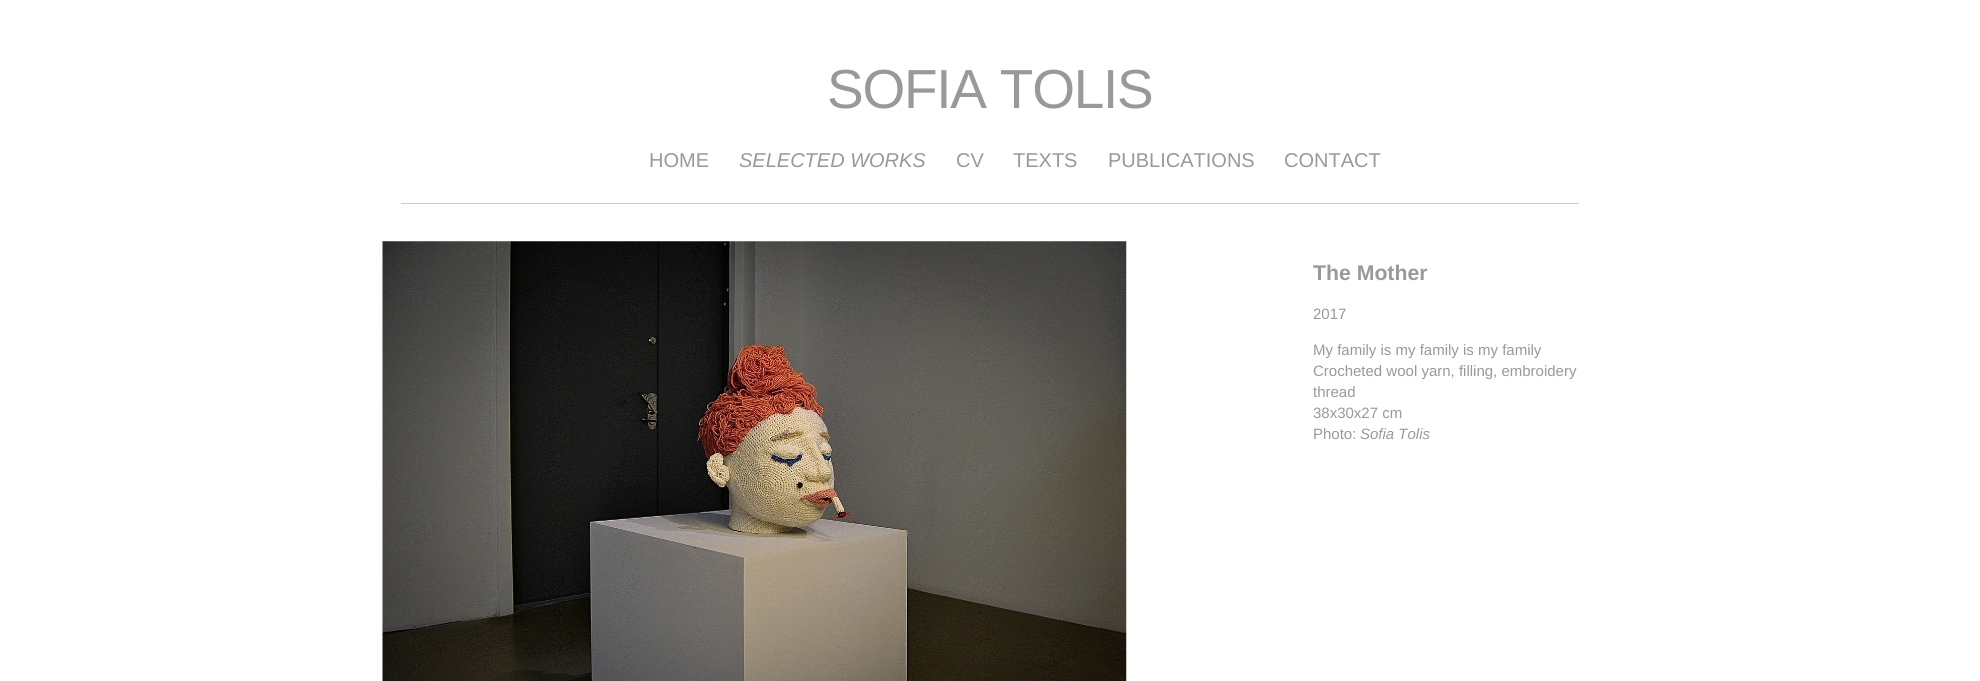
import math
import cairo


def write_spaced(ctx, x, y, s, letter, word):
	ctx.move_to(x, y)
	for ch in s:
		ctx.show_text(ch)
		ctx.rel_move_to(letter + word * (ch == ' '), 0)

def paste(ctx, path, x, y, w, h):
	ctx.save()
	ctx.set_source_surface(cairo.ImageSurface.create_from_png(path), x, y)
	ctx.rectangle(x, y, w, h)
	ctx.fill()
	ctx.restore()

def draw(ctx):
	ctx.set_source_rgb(1, 1, 1)
	ctx.paint()
	ctx.set_source_rgb(0.8, 0.8, 0.8)
	ctx.rectangle(401, 203, 1178, 1)
	ctx.fill()
	ctx.select_font_face('Liberation Sans')
	ctx.set_font_size(55)
	ctx.set_source_rgb(0.6, 0.6, 0.6)
	write_spaced(ctx, 827, 108, 'SOFIA TOLIS', -1.25, 0)
	ctx.set_font_size(20)
	ctx.move_to(649, 167)
	ctx.show_text('HOME')
	ctx.select_font_face('Liberation Sans', cairo.FONT_SLANT_ITALIC)
	ctx.move_to(739, 167)
	ctx.show_text('SELECTED WORKS')
	ctx.select_font_face('Liberation Sans')
	for x, y, s in [
		(956, 167, 'CV'),
		(1013, 167, 'TEXTS'),
		(1108, 167, 'PUBLICATIONS'),
		(1284, 167, 'CONTACT'),
	]:
		ctx.move_to(x, y)
		ctx.show_text(s)
	paste(ctx, 'media/1.png', 382, 241, 745, 440)
	ctx.select_font_face('Liberation Sans', cairo.FONT_SLANT_NORMAL, cairo.FONT_WEIGHT_BOLD)
	ctx.set_font_size(21.25)
	ctx.move_to(1313, 280)
	ctx.show_text('The Mother')
	ctx.select_font_face('Liberation Sans')
	ctx.set_font_size(15)
	for x, y, s in [
		(1313, 319, '2017'),
		(1313, 355, 'My family is my family is my family'),
		(1313, 376, 'Crocheted wool yarn, filling, embroidery'),
		(1313, 397, 'thread'),
		(1313, 418, '38x30x27 cm'),
		(1313, 439, 'Photo:'),
	]:
		ctx.move_to(x, y)
		ctx.show_text(s)
	ctx.select_font_face('Liberation Sans', cairo.FONT_SLANT_ITALIC)
	ctx.move_to(1360, 439)
	ctx.show_text('Sofia Tolis')


surface = cairo.ImageSurface(cairo.FORMAT_RGB24, 1980, 681)
ctx = cairo.Context(surface)
options = cairo.FontOptions()
options.set_hint_metrics(cairo.HINT_METRICS_OFF)
options.set_hint_style(cairo.HINT_STYLE_NONE)
ctx.set_font_options(options)
ctx.set_miter_limit(4)
draw(ctx)
surface.write_to_png('image.png')
